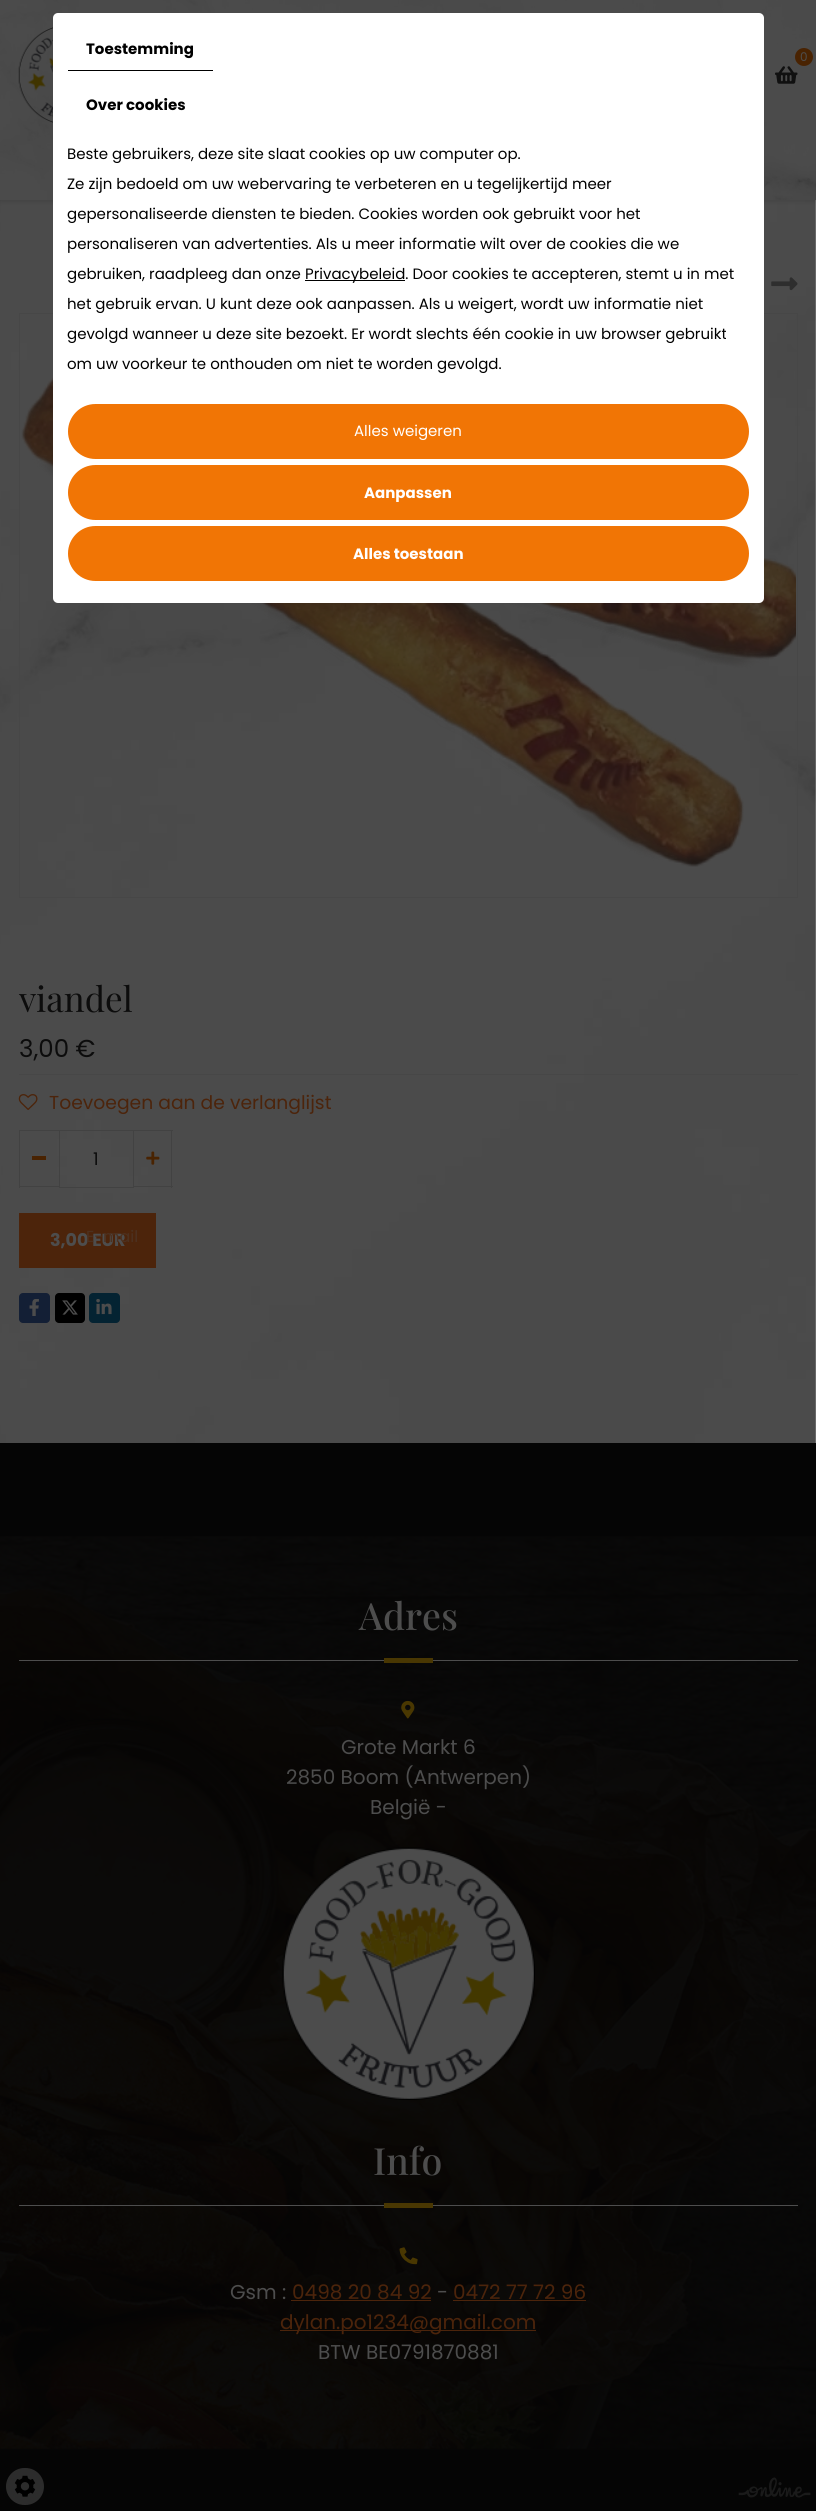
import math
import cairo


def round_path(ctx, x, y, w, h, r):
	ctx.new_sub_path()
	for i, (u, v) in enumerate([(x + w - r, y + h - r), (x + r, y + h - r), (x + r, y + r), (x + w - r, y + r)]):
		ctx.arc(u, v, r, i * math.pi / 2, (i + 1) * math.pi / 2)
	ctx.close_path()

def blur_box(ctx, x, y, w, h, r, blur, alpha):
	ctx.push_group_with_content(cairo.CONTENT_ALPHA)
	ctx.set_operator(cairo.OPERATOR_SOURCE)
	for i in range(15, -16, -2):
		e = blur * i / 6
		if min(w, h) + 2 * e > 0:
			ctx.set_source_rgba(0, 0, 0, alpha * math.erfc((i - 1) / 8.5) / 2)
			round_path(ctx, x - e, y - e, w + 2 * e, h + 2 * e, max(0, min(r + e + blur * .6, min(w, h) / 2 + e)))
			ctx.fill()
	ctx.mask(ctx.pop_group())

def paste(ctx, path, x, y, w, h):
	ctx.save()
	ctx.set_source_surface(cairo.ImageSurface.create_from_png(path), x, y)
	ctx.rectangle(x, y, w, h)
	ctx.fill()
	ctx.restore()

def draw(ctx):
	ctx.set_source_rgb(1, 1, 1)
	ctx.paint()
	paste(ctx, 'media/1.png', 0, 200, 816, 1243)
	ctx.set_source_rgb(0, 0, 0)
	blur_box(ctx, 0, 0, 816, 200, 0, 3, 0.2)
	paste(ctx, 'media/2.png', 0, 0, 816, 200)
	ctx.rectangle(19.5, 313.5, 778, 584)
	ctx.set_source_rgb(0.278, 0.278, 0.278)
	ctx.set_line_width(1)
	ctx.stroke()
	paste(ctx, 'media/5.png', 21, 376, 775, 491)
	ctx.set_source_rgb(1, 1, 1)
	round_path(ctx, 53, 13, 711, 590, 5)
	ctx.fill()
	ctx.set_source_rgb(0, 0, 0)
	ctx.rectangle(68, 70, 145, 1)
	ctx.fill()
	ctx.select_font_face('Poppins', cairo.FONT_SLANT_NORMAL, cairo.FONT_WEIGHT_BOLD)
	ctx.set_font_size(15)
	ctx.move_to(86, 54)
	ctx.show_text('Toestemming')
	ctx.move_to(86, 110)
	ctx.show_text('Over cookies')
	ctx.select_font_face('Poppins')
	for x, y, s in [
		(67, 159, 'Beste gebruikers, deze site slaat cookies op uw computer op.'),
		(67, 189, 'Ze zijn bedoeld om uw webervaring te verbeteren en u tegelijkertijd meer'),
		(67, 219, 'gepersonaliseerde diensten te bieden. Cookies worden ook gebruikt voor het'),
		(67, 249, 'personaliseren van advertenties. Als u meer informatie wilt over de cookies die we'),
		(67, 279, 'gebruiken, raadpleeg dan onze'),
	]:
		ctx.move_to(x, y)
		ctx.show_text(s)
	ctx.rectangle(305, 280, 100, 1)
	ctx.fill()
	for x, y, s in [
		(305, 279, 'Privacybeleid. Door cookies te accepteren, stemt u in met'),
		(67, 309, 'het gebruik ervan. U kunt deze ook aanpassen. Als u weigert, wordt uw informatie niet'),
		(67, 339, 'gevolgd wanneer u deze site bezoekt. Er wordt slechts één cookie in uw browser gebruikt'),
		(67, 369, 'om uw voorkeur te onthouden om niet te worden gevolgd.'),
	]:
		ctx.move_to(x, y)
		ctx.show_text(s)
	ctx.set_source_rgb(0.945, 0.459, 0.02)
	round_path(ctx, 68, 404, 681, 55, 27.5)
	ctx.fill()
	ctx.set_source_rgb(1, 1, 1)
	ctx.move_to(354, 436)
	ctx.show_text('Alles weigeren')
	ctx.set_source_rgb(0.945, 0.459, 0.02)
	round_path(ctx, 68, 465, 681, 55, 27.5)
	ctx.fill()
	ctx.select_font_face('Poppins', cairo.FONT_SLANT_NORMAL, cairo.FONT_WEIGHT_BOLD)
	ctx.set_source_rgb(1, 1, 1)
	ctx.move_to(364, 498)
	ctx.show_text('Aanpassen')
	ctx.set_source_rgb(0.945, 0.459, 0.02)
	round_path(ctx, 68, 526, 681, 55, 27.5)
	ctx.fill()
	ctx.set_source_rgb(1, 1, 1)
	ctx.move_to(353, 559)
	ctx.show_text('Alles toestaan')
	paste(ctx, 'media/3.png', 18, 27, 35, 96)
	ctx.set_source_rgb(0.286, 0.137, 0.008)
	ctx.arc(804, 57, 9, 0, 2 * math.pi)
	ctx.fill()
	ctx.select_font_face('Poppins')
	ctx.set_font_size(12)
	ctx.set_source_rgb(0.302, 0.302, 0.302)
	ctx.move_to(800, 61)
	ctx.show_text('0')
	paste(ctx, 'media/4.png', 775, 66, 23, 18)
	ctx.set_source_rgb(0.298, 0.141, 0.043)
	ctx.rectangle(19, 1213, 137, 55)
	ctx.fill()
	ctx.select_font_face('Poppins', cairo.FONT_SLANT_NORMAL, cairo.FONT_WEIGHT_BOLD)
	ctx.set_font_size(17.5)
	ctx.set_source_rgb(0.302, 0.302, 0.302)
	ctx.move_to(50, 1246)
	ctx.show_text('3,00 EUR')
	ctx.select_font_face('Poppins')
	ctx.set_font_size(16)
	ctx.set_source_rgb(0.298, 0.192, 0.125)
	ctx.move_to(86, 1242)
	ctx.show_text('E-mail')
	paste(ctx, 'media/6.png', 771, 277, 27, 14)
	ctx.set_source_rgb(0.278, 0.278, 0.278)
	ctx.rectangle(19, 1074, 779, 1)
	ctx.fill()
	ctx.select_font_face('Playfair Display')
	ctx.set_font_size(35)
	ctx.set_source_rgb(0.047, 0.047, 0.047)
	ctx.move_to(19, 1012)
	ctx.show_text('viandel')
	ctx.select_font_face('Poppins')
	ctx.set_font_size(24.5)
	ctx.move_to(19, 1057)
	ctx.show_text('3,00 €')
	paste(ctx, 'media/7.png', 18, 1094, 20, 16)
	ctx.set_font_size(18.75)
	ctx.set_source_rgb(0.298, 0.141, 0.043)
	ctx.move_to(49, 1109)
	ctx.show_text('Toevoegen aan de verlanglijst')
	ctx.set_source_rgb(0.259, 0.259, 0.259)
	ctx.rectangle(19, 1130, 40, 1)
	ctx.rectangle(19, 1186, 40, 1)
	ctx.rectangle(19, 1130, 1, 58)
	ctx.fill()
	ctx.set_source_rgb(0.286, 0.137, 0.008)
	ctx.rectangle(32, 1156, 14, 4)
	ctx.fill()
	ctx.rectangle(59.5, 1130.5, 74, 57)
	ctx.set_source_rgb(0.259, 0.259, 0.259)
	ctx.stroke()
	ctx.set_font_size(17.5)
	ctx.set_source_rgb(0.047, 0.047, 0.047)
	ctx.move_to(93, 1165)
	ctx.show_text('1')
	ctx.set_source_rgb(0.259, 0.259, 0.259)
	ctx.rectangle(134, 1130, 39, 1)
	ctx.rectangle(171, 1130, 1, 58)
	ctx.rectangle(134, 1186, 39, 1)
	ctx.fill()
	paste(ctx, 'media/8.png', 146, 1151, 14, 14)
	ctx.set_source_rgb(0.078, 0.122, 0.208)
	round_path(ctx, 19, 1293, 31, 30, 4)
	ctx.fill()
	paste(ctx, 'media/9.png', 29, 1299, 10, 17)
	ctx.set_source_rgb(0, 0, 0)
	round_path(ctx, 55, 1293, 30, 30, 4)
	ctx.fill()
	paste(ctx, 'media/10.png', 62, 1300, 16, 15)
	ctx.set_source_rgb(0.016, 0.137, 0.196)
	round_path(ctx, 89, 1293, 31, 30, 4)
	ctx.fill()
	paste(ctx, 'media/11.png', 96, 1299, 16, 16)
	ctx.set_source_rgb(0.02, 0.02, 0.02)
	ctx.rectangle(0, 1443, 816, 1068)
	ctx.fill()
	paste(ctx, 'media/12.png', 0, 1536, 816, 913)
	ctx.set_source_rgba(0.02, 0.02, 0.02, 0.9)
	ctx.rectangle(0, 1536, 816, 913)
	ctx.fill()
	ctx.set_source_rgb(0.302, 0.302, 0.302)
	ctx.rectangle(19, 1660, 779, 1)
	ctx.fill()
	ctx.select_font_face('Playfair Display Medium')
	ctx.set_font_size(37.5)
	ctx.move_to(359, 1630)
	ctx.show_text('Adres')
	ctx.set_source_rgb(0.286, 0.216, 0.008)
	ctx.rectangle(384, 1658, 49, 5)
	ctx.fill()
	paste(ctx, 'media/13.png', 401, 1700, 14, 19)
	ctx.select_font_face('Poppins')
	ctx.set_font_size(20)
	ctx.set_source_rgb(0.302, 0.302, 0.302)
	for x, y, s in [
		(341, 1754, 'Grote Markt 6'),
		(286, 1784, '2850 Boom (Antwerpen)'),
		(370, 1814, 'België -'),
	]:
		ctx.move_to(x, y)
		ctx.show_text(s)
	paste(ctx, 'media/14.png', 282, 1847, 253, 253)
	ctx.rectangle(19, 2205, 779, 1)
	ctx.fill()
	ctx.select_font_face('Playfair Display Medium')
	ctx.set_font_size(37.5)
	ctx.move_to(373, 2175)
	ctx.show_text('Info')
	ctx.set_source_rgb(0.286, 0.216, 0.008)
	ctx.rectangle(384, 2203, 49, 5)
	ctx.fill()
	paste(ctx, 'media/15.png', 399, 2247, 19, 18)
	ctx.select_font_face('Poppins')
	ctx.set_font_size(20)
	ctx.set_source_rgb(0.302, 0.302, 0.302)
	ctx.move_to(230, 2299)
	ctx.show_text('Gsm :')
	ctx.set_source_rgb(0.298, 0.141, 0.043)
	ctx.move_to(292, 2299)
	ctx.show_text('0498 20 84 92')
	ctx.rectangle(291, 2300, 140, 1)
	ctx.fill()
	ctx.set_source_rgb(0.302, 0.302, 0.302)
	ctx.move_to(437, 2299)
	ctx.show_text('-')
	ctx.set_source_rgb(0.298, 0.141, 0.043)
	ctx.move_to(453, 2299)
	ctx.show_text('0472 77 72 96')
	ctx.rectangle(453, 2300, 133, 1)
	ctx.fill()
	ctx.rectangle(280, 2330, 256, 1)
	ctx.fill()
	ctx.move_to(280, 2329)
	ctx.show_text('dylan.po1234@gmail.com')
	ctx.set_source_rgb(0.302, 0.302, 0.302)
	ctx.move_to(318, 2359)
	ctx.show_text('BTW BE0791870881')
	paste(ctx, 'media/16.png', 738, 2477, 73, 21)
	ctx.set_source_rgb(0.173, 0.173, 0.173)
	round_path(ctx, 6, 2468, 38, 37, 18.5)
	ctx.fill()
	paste(ctx, 'media/17.png', 14, 2475, 22, 22)


surface = cairo.ImageSurface(cairo.FORMAT_RGB24, 816, 2511)
ctx = cairo.Context(surface)
options = cairo.FontOptions()
options.set_hint_metrics(cairo.HINT_METRICS_OFF)
options.set_hint_style(cairo.HINT_STYLE_NONE)
ctx.set_font_options(options)
ctx.set_miter_limit(4)
draw(ctx)
surface.write_to_png('image.png')
